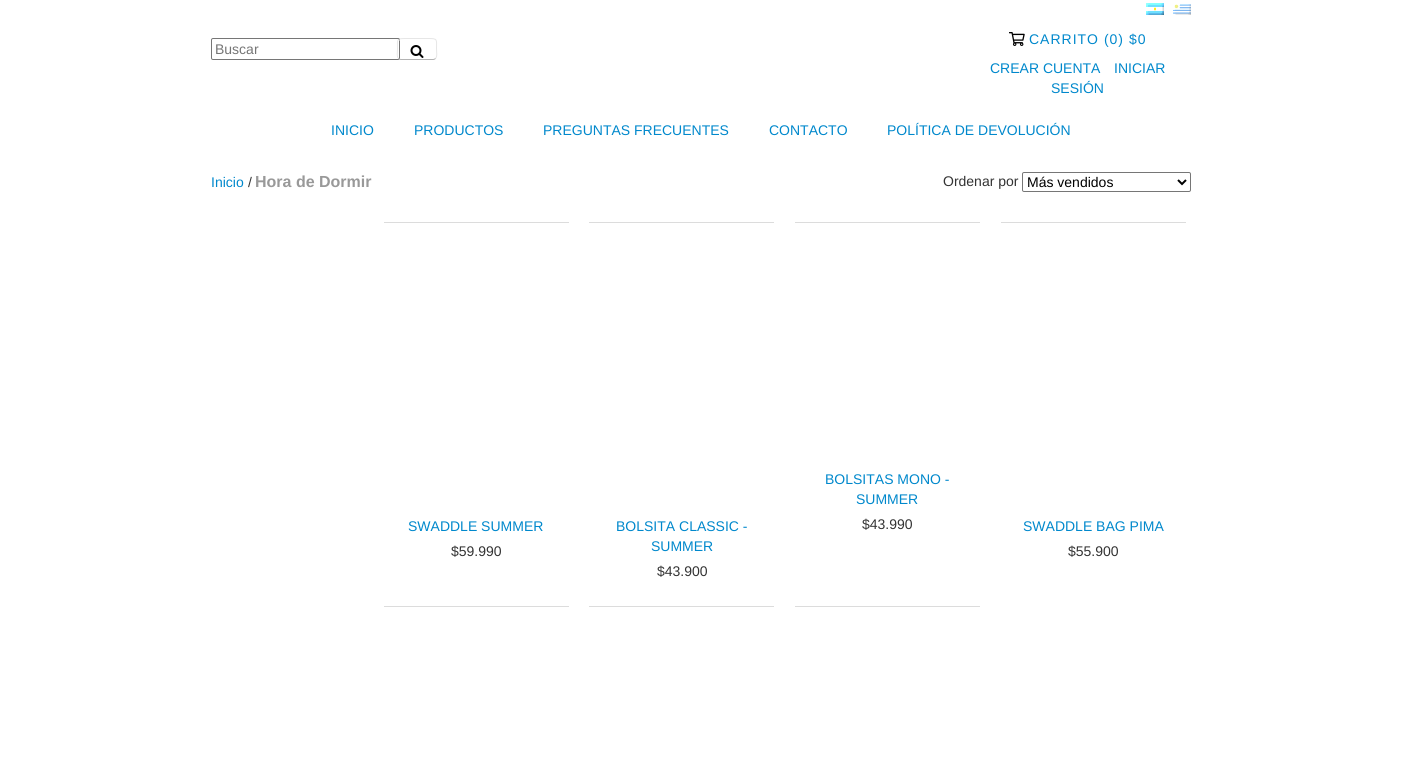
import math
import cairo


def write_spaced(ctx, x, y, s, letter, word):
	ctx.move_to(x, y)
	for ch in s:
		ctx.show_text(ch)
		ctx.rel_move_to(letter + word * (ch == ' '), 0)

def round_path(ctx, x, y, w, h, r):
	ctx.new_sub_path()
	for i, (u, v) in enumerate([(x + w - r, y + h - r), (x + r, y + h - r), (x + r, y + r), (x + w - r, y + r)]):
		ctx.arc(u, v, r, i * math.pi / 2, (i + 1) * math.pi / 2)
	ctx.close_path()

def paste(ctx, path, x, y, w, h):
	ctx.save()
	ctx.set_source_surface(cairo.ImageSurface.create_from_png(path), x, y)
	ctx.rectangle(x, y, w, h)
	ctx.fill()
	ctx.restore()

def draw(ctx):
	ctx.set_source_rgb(1, 1, 1)
	ctx.paint()
	round_path(ctx, 211.5, 38.5, 188, 21, 1.5)
	ctx.set_source_rgb(0.463, 0.463, 0.463)
	ctx.set_line_width(1)
	ctx.stroke()
	ctx.select_font_face('Liberation Sans')
	ctx.set_font_size(14)
	ctx.set_source_rgb(0.459, 0.459, 0.459)
	ctx.move_to(215, 54)
	ctx.show_text('Buscar')
	ctx.set_source_rgb(1, 1, 1)
	ctx.set_fill_rule(cairo.FILL_RULE_EVEN_ODD)
	ctx.new_path()
	ctx.move_to(401, 40)
	ctx.line_to(428, 40)
	ctx.curve_to(434.5, 39.5, 436, 39.5, 436, 48)
	ctx.line_to(436, 42)
	ctx.curve_to(436, 40.5, 434.5, 39, 433, 39)
	ctx.line_to(401, 39)
	ctx.curve_to(399.5, 39, 398, 40.5, 398, 42)
	ctx.curve_to(398.5, 41, 399.5, 40, 401, 40)
	ctx.close_path()
	ctx.move_to(398, 57)
	ctx.line_to(398, 50)
	ctx.close_path()
	ctx.fill()
	ctx.new_path()
	ctx.move_to(435.5, 58.5)
	ctx.curve_to(435, 59, 434, 59.5, 433, 59.5)
	ctx.line_to(401, 59.5)
	ctx.curve_to(400, 59.5, 399, 59, 398.5, 58.5)
	ctx.set_source_rgb(0.702, 0.702, 0.702)
	ctx.stroke()
	ctx.new_path()
	ctx.move_to(398.5, 58.5)
	ctx.curve_to(396.5, 56.5, 397.5, 51.5, 397.5, 49)
	ctx.curve_to(397.5, 39, 396, 38.5, 406.5, 38.5)
	ctx.line_to(427.5, 38.5)
	ctx.curve_to(438, 38.5, 436.5, 39, 436.5, 49)
	ctx.curve_to(436.5, 51.5, 437.5, 56.5, 435.5, 58.5)
	ctx.set_source_rgba(0, 0, 0, 0.1)
	ctx.stroke()
	paste(ctx, 'media/1.png', 410, 45, 14, 13)
	paste(ctx, 'media/2.png', 1146, 3, 18, 12)
	paste(ctx, 'media/3.png', 1173, 4, 18, 11)
	paste(ctx, 'media/4.png', 1009, 32, 16, 14)
	ctx.set_source_rgb(0, 0.533, 0.8)
	write_spaced(ctx, 1029, 44, 'CARRITO (0) $0', 1, 0)
	for x, y, s in [
		(990, 73, 'CREAR CUENTA'),
		(1114, 73, 'INICIAR'),
		(1051, 93, 'SESIÓN'),
		(331, 135, 'INICIO'),
		(414, 135, 'PRODUCTOS'),
		(543, 135, 'PREGUNTAS FRECUENTES'),
		(769, 135, 'CONTACTO'),
		(887, 135, 'POLÍTICA DE DEVOLUCIÓN'),
		(211, 187, 'Inicio'),
	]:
		ctx.move_to(x, y)
		ctx.show_text(s)
	ctx.set_source_rgb(0.2, 0.2, 0.2)
	ctx.move_to(248, 187)
	ctx.show_text('/')
	ctx.select_font_face('Liberation Sans', cairo.FONT_SLANT_NORMAL, cairo.FONT_WEIGHT_BOLD)
	ctx.set_font_size(16)
	ctx.set_source_rgb(0.6, 0.6, 0.6)
	ctx.move_to(255, 187)
	ctx.show_text('Hora de Dormir')
	ctx.select_font_face('Liberation Sans')
	ctx.set_font_size(14)
	ctx.set_source_rgb(0.2, 0.2, 0.2)
	ctx.move_to(943, 186)
	ctx.show_text('Ordenar por')
	round_path(ctx, 1022.5, 172.5, 168, 19, 1.5)
	ctx.set_source_rgb(0.463, 0.463, 0.463)
	ctx.stroke()
	ctx.new_path()
	ctx.move_to(1178, 180)
	ctx.line_to(1182, 184)
	ctx.line_to(1186, 180)
	ctx.set_source_rgb(0, 0, 0)
	ctx.set_line_width(2)
	ctx.stroke()
	ctx.move_to(1027, 187)
	ctx.show_text('Más vendidos')
	ctx.set_source_rgb(0.863, 0.863, 0.863)
	ctx.rectangle(795, 222, 185, 1)
	ctx.fill()
	ctx.set_source_rgb(0, 0.533, 0.8)
	ctx.move_to(825, 484)
	ctx.show_text('BOLSITAS MONO -')
	ctx.move_to(856, 504)
	ctx.show_text('SUMMER')
	ctx.set_source_rgb(0.2, 0.2, 0.2)
	ctx.move_to(862, 529)
	ctx.show_text('$43.990')
	ctx.set_source_rgb(0.863, 0.863, 0.863)
	ctx.rectangle(384, 222, 185, 1)
	ctx.fill()
	ctx.set_source_rgb(0, 0.533, 0.8)
	ctx.move_to(408, 531)
	ctx.show_text('SWADDLE SUMMER')
	ctx.set_source_rgb(0.2, 0.2, 0.2)
	ctx.move_to(451, 556)
	ctx.show_text('$59.990')
	ctx.set_source_rgb(0.863, 0.863, 0.863)
	ctx.rectangle(589, 222, 185, 1)
	ctx.fill()
	ctx.set_source_rgb(0, 0.533, 0.8)
	ctx.move_to(616, 531)
	ctx.show_text('BOLSITA CLASSIC -')
	ctx.move_to(651, 551)
	ctx.show_text('SUMMER')
	ctx.set_source_rgb(0.2, 0.2, 0.2)
	ctx.move_to(657, 576)
	ctx.show_text('$43.900')
	ctx.set_source_rgb(0.863, 0.863, 0.863)
	ctx.rectangle(1001, 222, 185, 1)
	ctx.fill()
	ctx.set_source_rgb(0, 0.533, 0.8)
	ctx.move_to(1023, 531)
	ctx.show_text('SWADDLE BAG PIMA')
	ctx.set_source_rgb(0.2, 0.2, 0.2)
	ctx.move_to(1068, 556)
	ctx.show_text('$55.900')
	ctx.set_source_rgb(0.863, 0.863, 0.863)
	ctx.rectangle(384, 606, 185, 1)
	ctx.rectangle(589, 606, 185, 1)
	ctx.rectangle(795, 606, 185, 1)
	ctx.fill()


surface = cairo.ImageSurface(cairo.FORMAT_RGB24, 1402, 757)
ctx = cairo.Context(surface)
options = cairo.FontOptions()
options.set_hint_metrics(cairo.HINT_METRICS_OFF)
options.set_hint_style(cairo.HINT_STYLE_NONE)
ctx.set_font_options(options)
ctx.set_miter_limit(4)
draw(ctx)
surface.write_to_png('image.png')
